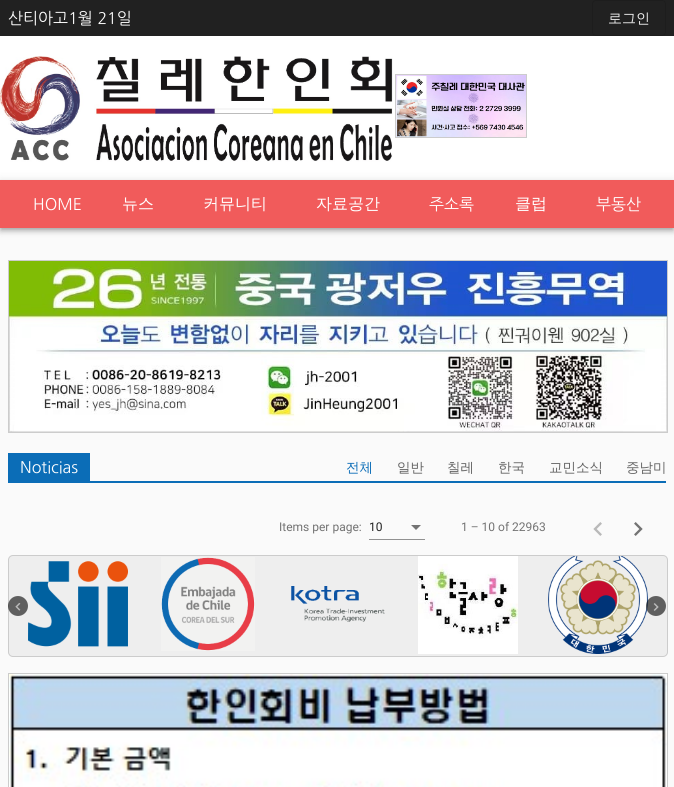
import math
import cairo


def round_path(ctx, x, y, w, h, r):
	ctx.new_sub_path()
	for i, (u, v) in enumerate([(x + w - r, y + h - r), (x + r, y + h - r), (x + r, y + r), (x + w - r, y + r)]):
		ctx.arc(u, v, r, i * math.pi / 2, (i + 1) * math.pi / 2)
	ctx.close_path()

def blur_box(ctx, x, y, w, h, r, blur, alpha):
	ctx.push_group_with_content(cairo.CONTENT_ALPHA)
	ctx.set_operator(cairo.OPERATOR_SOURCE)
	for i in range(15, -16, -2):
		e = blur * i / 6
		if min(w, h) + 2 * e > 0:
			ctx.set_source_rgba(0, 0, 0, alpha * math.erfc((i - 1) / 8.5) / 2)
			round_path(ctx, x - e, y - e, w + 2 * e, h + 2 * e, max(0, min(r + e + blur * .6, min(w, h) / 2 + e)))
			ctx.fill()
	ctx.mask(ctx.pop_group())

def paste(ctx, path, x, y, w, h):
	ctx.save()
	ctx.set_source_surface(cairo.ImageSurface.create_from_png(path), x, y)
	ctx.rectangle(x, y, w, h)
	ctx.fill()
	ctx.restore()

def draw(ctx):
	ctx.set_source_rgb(0.98, 0.98, 0.98)
	ctx.paint()
	ctx.set_source_rgb(0.129, 0.129, 0.129)
	ctx.rectangle(0, 0, 674, 36)
	ctx.fill()
	ctx.select_font_face('NanumGothic')
	ctx.set_font_size(16)
	ctx.set_source_rgb(1, 1, 1)
	ctx.move_to(8, 24)
	ctx.show_text('산티아고1월 21일')
	round_path(ctx, 592.5, 0.5, 73, 35, 3.5)
	ctx.set_source_rgb(0.114, 0.114, 0.114)
	ctx.set_line_width(1)
	ctx.stroke()
	ctx.select_font_face('WenQuanYi Zen Hei Medium')
	ctx.set_font_size(14)
	ctx.set_source_rgb(0.933, 0.933, 0.933)
	ctx.move_to(608, 23)
	ctx.show_text('로그인')
	ctx.set_source_rgb(1, 1, 1)
	ctx.rectangle(0, 36, 674, 144)
	ctx.fill()
	paste(ctx, 'media/1.png', 0, 56, 393, 106)
	ctx.rectangle(395.5, 74.5, 131, 63)
	ctx.set_source_rgb(0.8, 0.8, 0.8)
	ctx.stroke()
	paste(ctx, 'media/2.png', 396, 75, 130, 62)
	ctx.set_source_rgb(0, 0, 0)
	blur_box(ctx, 0, 181, 674, 48, 0, 5, 0.12)
	blur_box(ctx, 0, 184, 674, 48, 0, 2.5, 0.14)
	blur_box(ctx, 1, 183, 672, 46, 0, 2, 0.2)
	ctx.set_source_rgb(0.945, 0.357, 0.357)
	ctx.rectangle(0, 180, 674, 48)
	ctx.fill()
	ctx.select_font_face('NanumGothic')
	ctx.set_font_size(16)
	ctx.set_source_rgb(1, 1, 1)
	ctx.move_to(33, 210)
	ctx.show_text('HOME')
	ctx.select_font_face('WenQuanYi Zen Hei Medium')
	for x, y, s in [
		(122, 209, '뉴스'),
		(203, 209, '커뮤니티'),
		(316, 209, '자료공간'),
	]:
		ctx.move_to(x, y)
		ctx.show_text(s)
	ctx.select_font_face('NanumGothic')
	ctx.move_to(429, 210)
	ctx.show_text('주소록')
	ctx.select_font_face('WenQuanYi Zen Hei Medium')
	ctx.move_to(515, 209)
	ctx.show_text('클럽')
	ctx.select_font_face('NanumGothic')
	ctx.move_to(596, 210)
	ctx.show_text('부동산')
	ctx.rectangle(8.5, 260.5, 659, 172)
	ctx.set_source_rgb(0.8, 0.8, 0.8)
	ctx.stroke()
	paste(ctx, 'media/3.png', 9, 261, 658, 171)
	ctx.set_source_rgb(0.043, 0.427, 0.718)
	ctx.rectangle(8, 481, 658, 2)
	ctx.fill()
	ctx.rectangle(8, 453, 82, 28)
	ctx.fill()
	ctx.set_source_rgb(1, 1, 1)
	ctx.move_to(20, 473)
	ctx.show_text('Noticias')
	ctx.select_font_face('WenQuanYi Zen Hei Medium')
	ctx.set_font_size(13.5)
	ctx.set_source_rgb(0.043, 0.427, 0.718)
	ctx.move_to(346, 472)
	ctx.show_text('전체')
	ctx.set_source_rgb(0.392, 0.392, 0.392)
	for x, y, s in [
		(397, 472, '일반'),
		(447, 472, '칠레'),
		(498, 472, '한국'),
		(549, 472, '교민소식'),
		(626, 472, '중남미'),
	]:
		ctx.move_to(x, y)
		ctx.show_text(s)
	ctx.select_font_face('Roboto')
	ctx.set_font_size(12)
	ctx.set_source_rgb(0.451, 0.451, 0.451)
	ctx.move_to(279, 531)
	ctx.show_text('Items per page:')
	ctx.set_source_rgb(0.129, 0.129, 0.129)
	ctx.move_to(369, 531)
	ctx.show_text('10')
	ctx.set_source_rgb(0.451, 0.451, 0.451)
	ctx.new_path()
	ctx.move_to(411, 525)
	ctx.line_to(421, 525)
	ctx.line_to(416, 530)
	ctx.close_path()
	ctx.fill()
	ctx.set_source_rgb(0.569, 0.569, 0.569)
	ctx.rectangle(369, 539, 56, 1)
	ctx.fill()
	ctx.set_source_rgb(0.451, 0.451, 0.451)
	ctx.move_to(461, 531)
	ctx.show_text('1 – 10 of 22963')
	paste(ctx, 'media/4.png', 593, 522, 9, 14)
	paste(ctx, 'media/5.png', 634, 522, 9, 14)
	ctx.set_source_rgb(0.933, 0.933, 0.933)
	round_path(ctx, 8.5, 555.5, 659, 101, 4.5)
	ctx.fill_preserve()
	ctx.set_source_rgb(0.8, 0.8, 0.8)
	ctx.stroke()
	paste(ctx, 'media/6.png', 28, 561, 100, 86)
	paste(ctx, 'media/7.png', 161, 557, 94, 94)
	paste(ctx, 'media/8.png', 291, 586, 94, 36)
	paste(ctx, 'media/9.png', 418, 556, 100, 98)
	paste(ctx, 'media/10.png', 548, 556, 100, 98)
	ctx.set_source_rgba(0, 0, 0, 0.6)
	ctx.arc(18, 606, 10, 0, 2 * math.pi)
	ctx.fill()
	paste(ctx, 'media/11.png', 15, 603, 6, 8)
	ctx.arc(656, 606, 10, 0, 2 * math.pi)
	ctx.fill()
	paste(ctx, 'media/12.png', 653, 603, 6, 8)
	ctx.rectangle(8.5, 673.5, 659, 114)
	ctx.set_source_rgb(0.8, 0.8, 0.8)
	ctx.stroke()
	paste(ctx, 'media/13.png', 9, 674, 658, 113)


surface = cairo.ImageSurface(cairo.FORMAT_RGB24, 674, 787)
ctx = cairo.Context(surface)
options = cairo.FontOptions()
options.set_hint_metrics(cairo.HINT_METRICS_OFF)
options.set_hint_style(cairo.HINT_STYLE_NONE)
ctx.set_font_options(options)
ctx.set_miter_limit(4)
draw(ctx)
surface.write_to_png('image.png')
